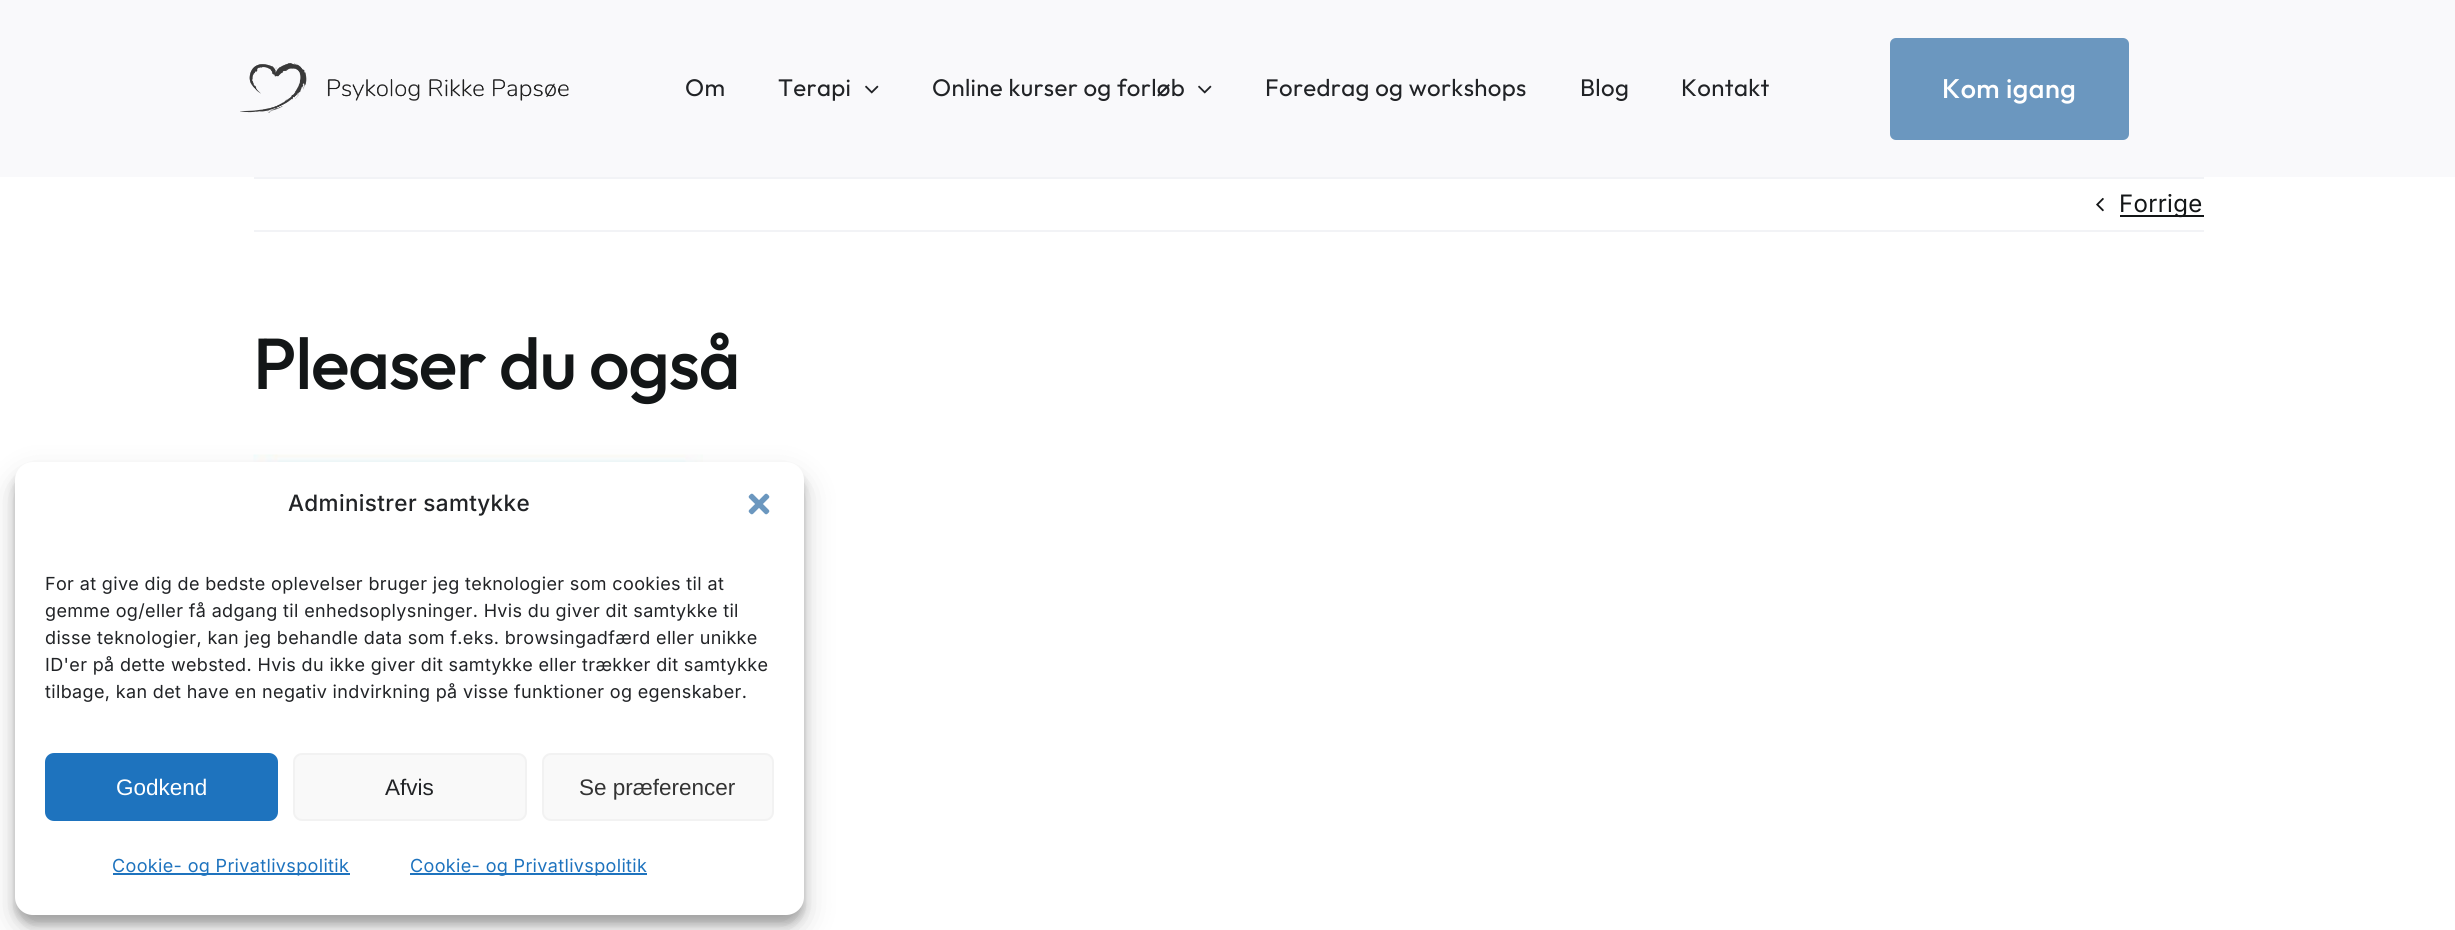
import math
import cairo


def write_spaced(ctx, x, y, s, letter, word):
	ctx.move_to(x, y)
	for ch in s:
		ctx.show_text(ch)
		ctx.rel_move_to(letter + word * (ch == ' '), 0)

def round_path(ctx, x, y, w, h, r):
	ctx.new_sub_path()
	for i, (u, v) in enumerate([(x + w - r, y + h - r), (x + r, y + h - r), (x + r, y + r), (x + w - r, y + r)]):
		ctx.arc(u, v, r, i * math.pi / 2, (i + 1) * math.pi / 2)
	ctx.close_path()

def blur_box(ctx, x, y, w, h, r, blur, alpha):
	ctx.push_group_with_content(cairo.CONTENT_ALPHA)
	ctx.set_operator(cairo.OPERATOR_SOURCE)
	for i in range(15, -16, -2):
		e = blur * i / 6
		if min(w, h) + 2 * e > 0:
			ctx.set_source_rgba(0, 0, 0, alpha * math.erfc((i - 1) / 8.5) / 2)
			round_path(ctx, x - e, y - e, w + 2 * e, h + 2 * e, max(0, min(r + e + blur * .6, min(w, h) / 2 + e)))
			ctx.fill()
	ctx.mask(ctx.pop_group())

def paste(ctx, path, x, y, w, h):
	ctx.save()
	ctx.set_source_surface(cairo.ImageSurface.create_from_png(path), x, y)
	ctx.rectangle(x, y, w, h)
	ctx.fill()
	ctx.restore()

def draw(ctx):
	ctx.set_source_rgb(1, 1, 1)
	ctx.paint()
	ctx.set_source_rgb(0.976, 0.976, 0.984)
	ctx.rectangle(0, 0, 2455, 177)
	ctx.fill()
	paste(ctx, 'media/1.png', 240, 63, 329, 50)
	ctx.select_font_face('Outfit')
	ctx.set_font_size(24)
	ctx.set_source_rgb(0.129, 0.137, 0.149)
	write_spaced(ctx, 685, 96, 'Om', 0.35, 0)
	write_spaced(ctx, 778, 96, 'Terapi', 0.35, 0)
	paste(ctx, 'media/2.png', 865, 85, 14, 9)
	write_spaced(ctx, 932, 96, 'Online kurser og forløb', 0.35, 0)
	paste(ctx, 'media/2.png', 1198, 85, 14, 9)
	for x, y, s in [
		(1265, 96, 'Foredrag og workshops'),
		(1580, 96, 'Blog'),
		(1681, 96, 'Kontakt'),
	]:
		write_spaced(ctx, x, y, s, 0.35, 0)
	ctx.set_source_rgb(0.42, 0.592, 0.749)
	round_path(ctx, 1890, 38, 239, 102, 6)
	ctx.fill()
	ctx.select_font_face('Outfit Medium')
	ctx.set_font_size(27)
	ctx.set_source_rgb(1, 1, 1)
	write_spaced(ctx, 1942, 98, 'Kom igang', 0.5, 0)
	ctx.set_source_rgb(0.949, 0.953, 0.961)
	ctx.rectangle(254, 177, 1950, 2)
	ctx.fill()
	ctx.rectangle(254, 230, 1950, 2)
	ctx.fill()
	paste(ctx, 'media/3.png', 2096, 197, 8, 15)
	ctx.set_source_rgb(0.078, 0.086, 0.09)
	ctx.rectangle(2120, 215, 84, 2)
	ctx.fill()
	ctx.select_font_face('Inter')
	ctx.set_font_size(24)
	write_spaced(ctx, 2119, 212, 'Forrige', 0.35, 0)
	ctx.select_font_face('Outfit Medium')
	ctx.set_font_size(72)
	write_spaced(ctx, 253, 389, 'Pleaser du også', -1.1, 0)
	paste(ctx, 'media/4.png', 253, 454, 450, 8)
	ctx.set_source_rgb(0, 0, 0)
	blur_box(ctx, 15, 471, 789, 453, 18, 4.5, 0.23)
	blur_box(ctx, 15, 477, 789, 453, 18, 15, 0.19)
	ctx.set_source_rgb(1, 1, 1)
	round_path(ctx, 15, 462, 789, 453, 18)
	ctx.fill()
	ctx.select_font_face('Inter Medium')
	ctx.set_font_size(22.5)
	ctx.set_source_rgb(0.129, 0.137, 0.149)
	write_spaced(ctx, 288, 511, 'Administrer samtykke', 0.35, 0)
	paste(ctx, 'media/5.png', 748, 493, 22, 22)
	ctx.select_font_face('Inter')
	ctx.set_font_size(18)
	for x, y, s in [
		(45, 590, 'For at give dig de bedste oplevelser bruger jeg teknologier som cookies til at'),
		(45, 617, 'gemme og/eller få adgang til enhedsoplysninger. Hvis du giver dit samtykke til'),
		(45, 644, 'disse teknologier, kan jeg behandle data som f.eks. browsingadfærd eller unikke'),
		(45, 671, 'ID\'er på dette websted. Hvis du ikke giver dit samtykke eller trækker dit samtykke'),
		(45, 698, 'tilbage, kan det have en negativ indvirkning på visse funktioner og egenskaber.'),
	]:
		write_spaced(ctx, x, y, s, 0.35, 0)
	ctx.set_source_rgb(0.118, 0.451, 0.745)
	round_path(ctx, 46, 754, 231, 66, 8)
	ctx.fill_preserve()
	ctx.stroke()
	ctx.select_font_face('Liberation Sans')
	ctx.set_font_size(22.5)
	ctx.set_source_rgb(1, 1, 1)
	ctx.move_to(116, 795)
	ctx.show_text('Godkend')
	ctx.set_source_rgb(0.976, 0.976, 0.976)
	round_path(ctx, 294, 754, 232, 66, 8)
	ctx.fill_preserve()
	ctx.set_source_rgb(0.949, 0.949, 0.949)
	ctx.stroke()
	ctx.set_source_rgb(0.129, 0.137, 0.149)
	ctx.move_to(385, 795)
	ctx.show_text('Afvis')
	ctx.set_source_rgb(0.976, 0.976, 0.976)
	round_path(ctx, 543, 754, 230, 66, 8)
	ctx.fill_preserve()
	ctx.set_source_rgb(0.949, 0.949, 0.949)
	ctx.stroke()
	ctx.set_source_rgb(0.2, 0.2, 0.2)
	ctx.move_to(579, 795)
	ctx.show_text('Se præferencer')
	ctx.set_source_rgb(0.118, 0.451, 0.745)
	ctx.rectangle(113, 873, 237, 2)
	ctx.fill()
	ctx.select_font_face('Inter')
	ctx.set_font_size(18)
	write_spaced(ctx, 112, 872, 'Cookie- og Privatlivspolitik', 0.35, 0)
	ctx.rectangle(410, 873, 237, 2)
	ctx.fill()
	write_spaced(ctx, 410, 872, 'Cookie- og Privatlivspolitik', 0.35, 0)


surface = cairo.ImageSurface(cairo.FORMAT_RGB24, 2455, 930)
ctx = cairo.Context(surface)
options = cairo.FontOptions()
options.set_hint_metrics(cairo.HINT_METRICS_OFF)
options.set_hint_style(cairo.HINT_STYLE_NONE)
ctx.set_font_options(options)
ctx.set_miter_limit(4)
draw(ctx)
surface.write_to_png('image.png')
